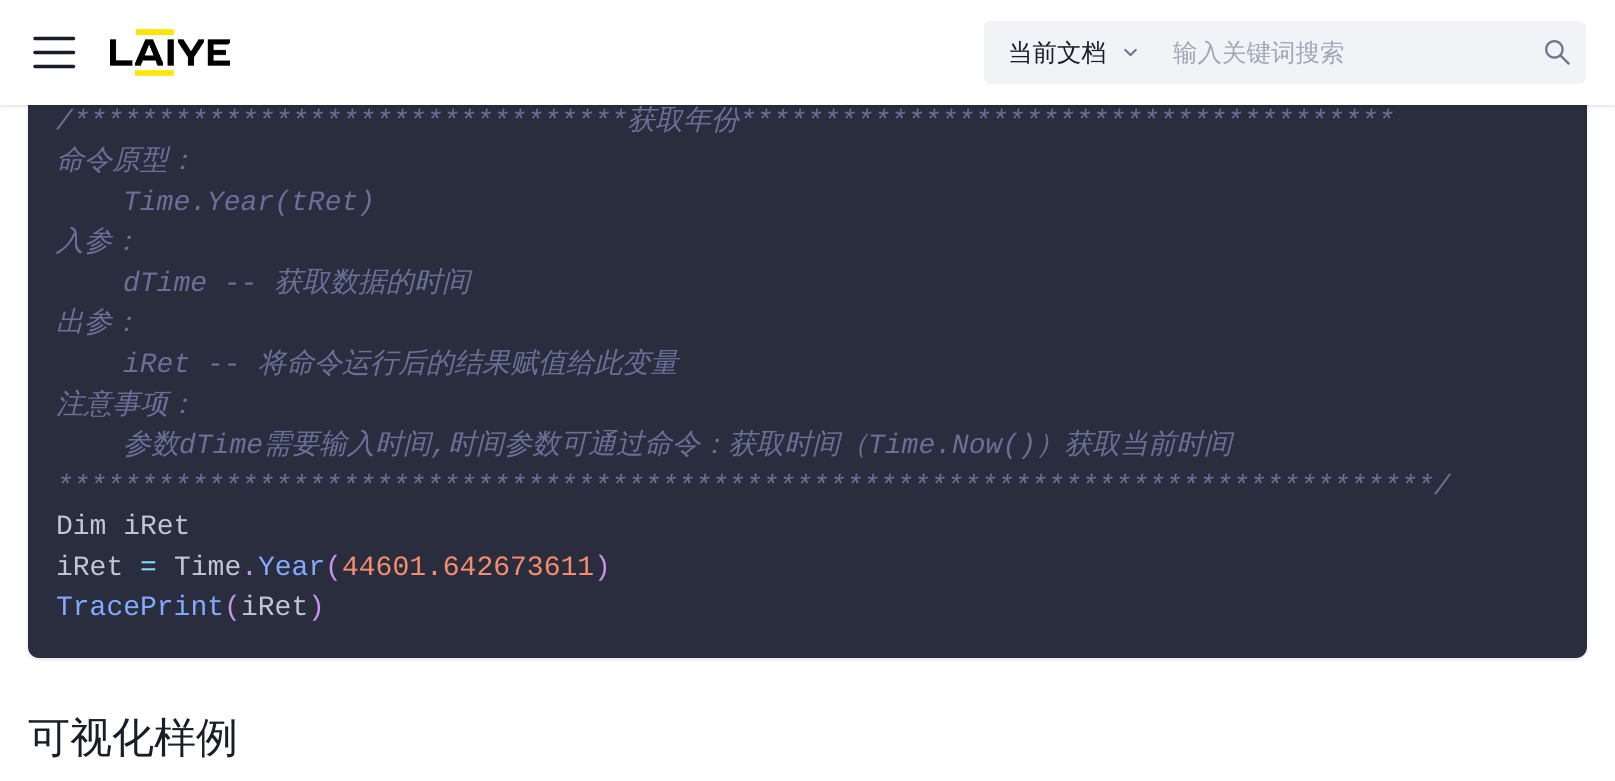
import math
import cairo


def round_path(ctx, x, y, w, h, r):
	ctx.new_sub_path()
	for i, (u, v) in enumerate([(x + w - r, y + h - r), (x + r, y + h - r), (x + r, y + r), (x + w - r, y + r)]):
		ctx.arc(u, v, r, i * math.pi / 2, (i + 1) * math.pi / 2)
	ctx.close_path()

def blur_box(ctx, x, y, w, h, r, blur, alpha):
	ctx.push_group_with_content(cairo.CONTENT_ALPHA)
	ctx.set_operator(cairo.OPERATOR_SOURCE)
	for i in range(15, -16, -2):
		e = blur * i / 6
		if min(w, h) + 2 * e > 0:
			ctx.set_source_rgba(0, 0, 0, alpha * math.erfc((i - 1) / 8.5) / 2)
			round_path(ctx, x - e, y - e, w + 2 * e, h + 2 * e, max(0, min(r + e + blur * .6, min(w, h) / 2 + e)))
			ctx.fill()
	ctx.mask(ctx.pop_group())

def paste(ctx, path, x, y, w, h):
	ctx.save()
	ctx.set_source_surface(cairo.ImageSurface.create_from_png(path), x, y)
	ctx.rectangle(x, y, w, h)
	ctx.fill()
	ctx.restore()

def draw(ctx):
	ctx.set_source_rgb(1, 1, 1)
	ctx.paint()
	ctx.set_source_rgb(0, 0, 0)
	blur_box(ctx, 28, 75, 1559, 585, 11, 2, 0.1)
	ctx.set_source_rgb(0.161, 0.176, 0.243)
	round_path(ctx, 28, 74, 1559, 584, 11)
	ctx.fill()
	ctx.set_source_rgb(0, 0, 0)
	blur_box(ctx, 0, 2, 1615, 105, 0, 2, 0.1)
	ctx.set_source_rgb(1, 1, 1)
	ctx.rectangle(0, 0, 1615, 105)
	ctx.fill()
	ctx.new_path()
	ctx.move_to(35, 38.5)
	ctx.line_to(73.5, 38.5)
	ctx.move_to(35, 52.5)
	ctx.line_to(73.5, 52.5)
	ctx.move_to(35, 66.5)
	ctx.line_to(73.5, 66.5)
	ctx.set_source_rgb(0.09, 0.114, 0.161)
	ctx.set_line_width(3.5)
	ctx.set_line_cap(cairo.LINE_CAP_ROUND)
	ctx.stroke()
	paste(ctx, 'media/1.png', 110, 29, 120, 47)
	ctx.set_source_rgb(0.949, 0.953, 0.961)
	ctx.new_path()
	ctx.move_to(991, 21)
	ctx.line_to(1160, 21)
	ctx.line_to(1160, 84)
	ctx.line_to(991, 84)
	ctx.curve_to(987, 84, 984, 81, 984, 77)
	ctx.line_to(984, 28)
	ctx.curve_to(984, 24, 987, 21, 991, 21)
	ctx.close_path()
	ctx.fill()
	ctx.set_fill_rule(cairo.FILL_RULE_EVEN_ODD)
	ctx.new_path()
	ctx.move_to(990, 21)
	ctx.line_to(1160, 21)
	ctx.line_to(1160, 84)
	ctx.line_to(990, 84)
	ctx.curve_to(987, 84, 984, 81, 984, 77)
	ctx.line_to(984, 28)
	ctx.curve_to(984, 24, 987, 21, 990, 21)
	ctx.close_path()
	ctx.move_to(990, 23)
	ctx.line_to(1160, 23)
	ctx.line_to(1160, 82)
	ctx.line_to(990, 82)
	ctx.curve_to(988, 82, 985, 80, 985, 77)
	ctx.line_to(985, 28)
	ctx.curve_to(985, 25, 988, 23, 990, 23)
	ctx.close_path()
	ctx.fill()
	ctx.select_font_face('WenQuanYi Zen Hei Medium')
	ctx.set_font_size(24.5)
	ctx.set_source_rgb(0.09, 0.114, 0.161)
	ctx.move_to(1008, 61)
	ctx.show_text('当前文档')
	paste(ctx, 'media/2.png', 1124, 48, 13, 9)
	ctx.set_source_rgb(0.949, 0.953, 0.961)
	ctx.rectangle(1160, 21, 370, 63)
	ctx.fill()
	ctx.set_source_rgb(0.62, 0.655, 0.722)
	ctx.move_to(1173, 61)
	ctx.show_text('输入关键词搜索')
	ctx.set_source_rgb(0.949, 0.953, 0.961)
	ctx.new_path()
	ctx.move_to(1530, 21)
	ctx.line_to(1579, 21)
	ctx.curve_to(1583, 21, 1586, 24, 1586, 28)
	ctx.line_to(1586, 77)
	ctx.curve_to(1586, 81, 1583, 84, 1579, 84)
	ctx.line_to(1530, 84)
	ctx.close_path()
	ctx.fill()
	paste(ctx, 'media/3.png', 1545, 40, 25, 25)
	ctx.select_font_face('Liberation Mono', cairo.FONT_SLANT_ITALIC)
	ctx.set_font_size(28)
	ctx.set_source_rgb(0.412, 0.439, 0.596)
	ctx.move_to(56, 129)
	ctx.show_text('/*********************************')
	ctx.select_font_face('WenQuanYi Zen Hei Medium', cairo.FONT_SLANT_ITALIC)
	ctx.move_to(627, 129)
	ctx.show_text('获取年份')
	ctx.select_font_face('Liberation Mono', cairo.FONT_SLANT_ITALIC)
	ctx.move_to(739, 129)
	ctx.show_text('***************************************')
	ctx.select_font_face('WenQuanYi Zen Hei Medium', cairo.FONT_SLANT_ITALIC)
	ctx.move_to(56, 169)
	ctx.show_text('命令原型：')
	ctx.select_font_face('Liberation Mono', cairo.FONT_SLANT_ITALIC)
	ctx.move_to(123, 210)
	ctx.show_text('Time.Year(tRet)')
	ctx.select_font_face('WenQuanYi Zen Hei Medium', cairo.FONT_SLANT_ITALIC)
	ctx.move_to(56, 250)
	ctx.show_text('入参：')
	ctx.select_font_face('Liberation Mono', cairo.FONT_SLANT_ITALIC)
	ctx.move_to(123, 291)
	ctx.show_text('dTime --')
	ctx.select_font_face('WenQuanYi Zen Hei Medium', cairo.FONT_SLANT_ITALIC)
	ctx.move_to(274, 291)
	ctx.show_text('获取数据的时间')
	ctx.move_to(56, 331)
	ctx.show_text('出参：')
	ctx.select_font_face('Liberation Mono', cairo.FONT_SLANT_ITALIC)
	ctx.move_to(123, 372)
	ctx.show_text('iRet --')
	ctx.select_font_face('WenQuanYi Zen Hei Medium', cairo.FONT_SLANT_ITALIC)
	for x, y, s in [
		(258, 372, '将命令运行后的结果赋值给此变量'),
		(56, 413, '注意事项：'),
		(123, 453, '参数'),
	]:
		ctx.move_to(x, y)
		ctx.show_text(s)
	ctx.select_font_face('Liberation Mono', cairo.FONT_SLANT_ITALIC)
	ctx.move_to(179, 453)
	ctx.show_text('dTime')
	ctx.select_font_face('WenQuanYi Zen Hei Medium', cairo.FONT_SLANT_ITALIC)
	ctx.move_to(263, 453)
	ctx.show_text('需要输入时间')
	ctx.select_font_face('Liberation Mono', cairo.FONT_SLANT_ITALIC)
	ctx.move_to(431, 453)
	ctx.show_text(',')
	ctx.select_font_face('WenQuanYi Zen Hei Medium', cairo.FONT_SLANT_ITALIC)
	ctx.move_to(448, 453)
	ctx.show_text('时间参数可通过命令：获取时间（')
	ctx.select_font_face('Liberation Mono', cairo.FONT_SLANT_ITALIC)
	ctx.move_to(868, 453)
	ctx.show_text('Time.Now()')
	ctx.select_font_face('WenQuanYi Zen Hei Medium', cairo.FONT_SLANT_ITALIC)
	ctx.move_to(1036, 453)
	ctx.show_text('）获取当前时间')
	ctx.select_font_face('Liberation Mono', cairo.FONT_SLANT_ITALIC)
	ctx.move_to(56, 494)
	ctx.show_text('**********************************************************************************/')
	ctx.select_font_face('Liberation Mono')
	ctx.set_source_rgb(0.749, 0.78, 0.835)
	ctx.move_to(56, 534)
	ctx.show_text('Dim iRet')
	ctx.move_to(56, 575)
	ctx.show_text('iRet')
	ctx.set_source_rgb(0.537, 0.867, 1)
	ctx.move_to(140, 575)
	ctx.show_text('=')
	ctx.set_source_rgb(0.749, 0.78, 0.835)
	ctx.move_to(174, 575)
	ctx.show_text('Time')
	ctx.set_source_rgb(0.51, 0.667, 1)
	ctx.move_to(258, 575)
	ctx.show_text('Year')
	ctx.set_source_rgb(0.78, 0.573, 0.918)
	ctx.move_to(325, 575)
	ctx.show_text('(')
	ctx.set_source_rgb(0.969, 0.549, 0.424)
	ctx.move_to(342, 575)
	ctx.show_text('44601.642673611')
	ctx.set_source_rgb(0.78, 0.573, 0.918)
	ctx.move_to(594, 575)
	ctx.show_text(')')
	ctx.move_to(241, 575)
	ctx.show_text('.')
	ctx.set_source_rgb(0.51, 0.667, 1)
	ctx.move_to(56, 615)
	ctx.show_text('TracePrint')
	ctx.set_source_rgb(0.78, 0.573, 0.918)
	ctx.move_to(224, 615)
	ctx.show_text('(')
	ctx.set_source_rgb(0.749, 0.78, 0.835)
	ctx.move_to(241, 615)
	ctx.show_text('iRet')
	ctx.set_source_rgb(0.78, 0.573, 0.918)
	ctx.move_to(308, 615)
	ctx.show_text(')')
	ctx.select_font_face('WenQuanYi Zen Hei Medium')
	ctx.set_font_size(42)
	ctx.set_source_rgb(0.09, 0.114, 0.161)
	ctx.move_to(28, 752)
	ctx.show_text('可视化样例')


surface = cairo.ImageSurface(cairo.FORMAT_RGB24, 1615, 781)
ctx = cairo.Context(surface)
options = cairo.FontOptions()
options.set_hint_metrics(cairo.HINT_METRICS_OFF)
options.set_hint_style(cairo.HINT_STYLE_NONE)
ctx.set_font_options(options)
ctx.set_miter_limit(4)
draw(ctx)
surface.write_to_png('image.png')
